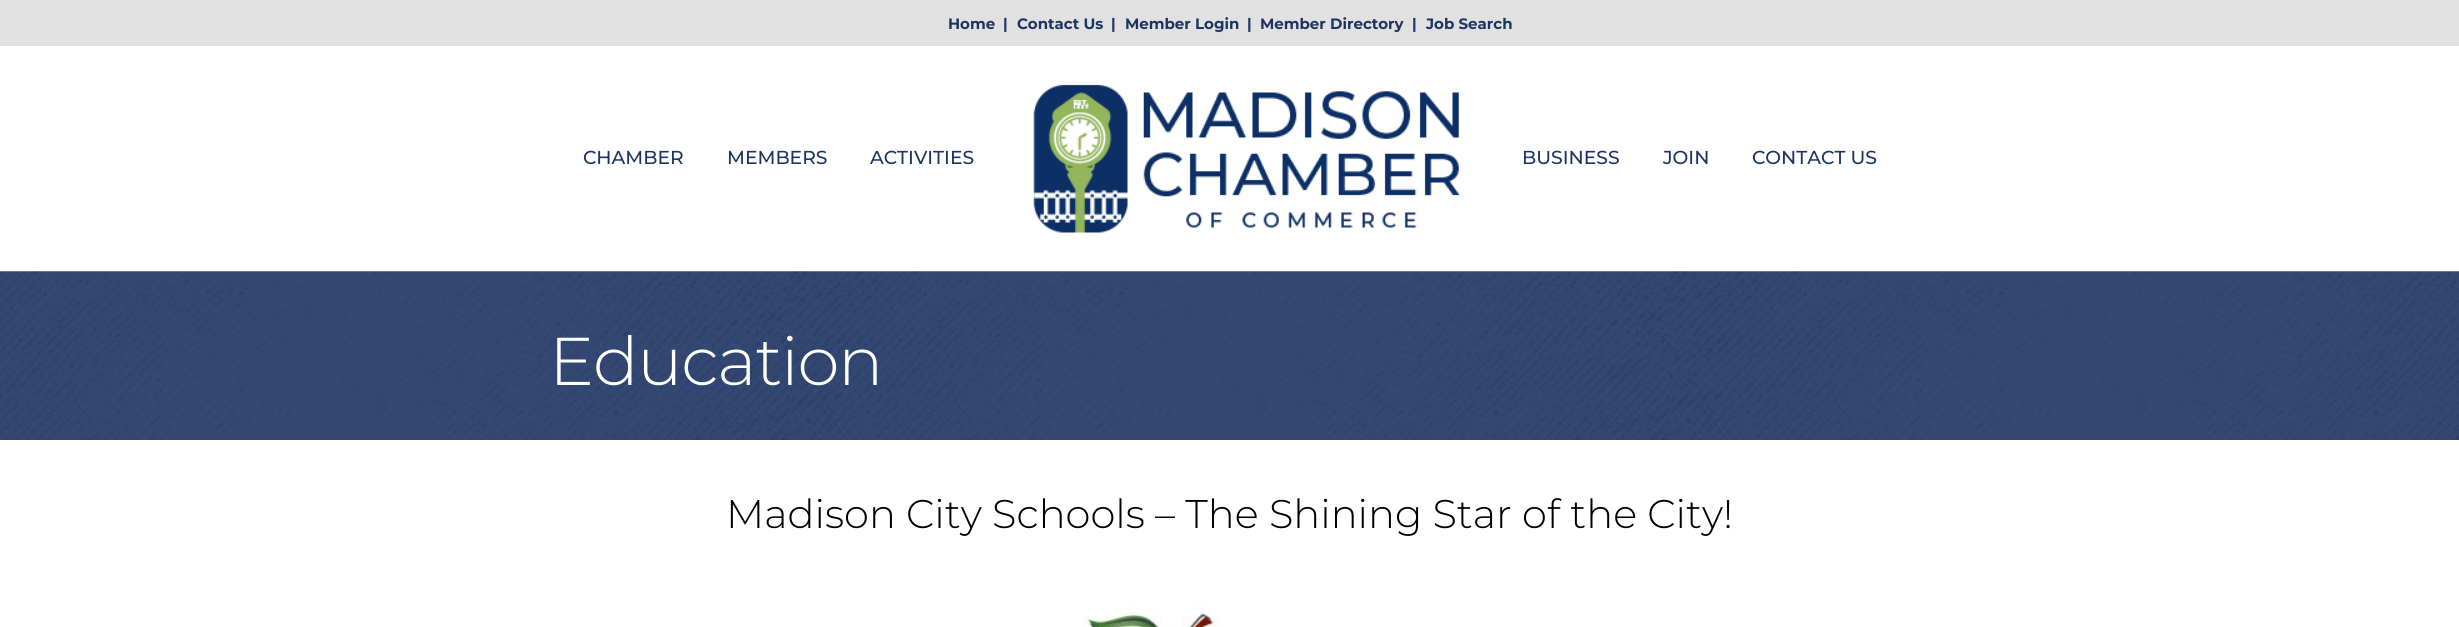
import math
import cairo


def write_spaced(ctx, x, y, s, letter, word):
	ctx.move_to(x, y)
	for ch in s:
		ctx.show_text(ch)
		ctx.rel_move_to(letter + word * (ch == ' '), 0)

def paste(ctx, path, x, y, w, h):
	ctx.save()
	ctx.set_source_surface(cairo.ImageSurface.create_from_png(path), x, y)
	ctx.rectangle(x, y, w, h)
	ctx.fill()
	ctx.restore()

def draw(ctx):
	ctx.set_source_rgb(1, 1, 1)
	ctx.paint()
	ctx.set_source_rgb(0.882, 0.882, 0.882)
	ctx.rectangle(0, 0, 2459, 46)
	ctx.fill()
	ctx.select_font_face('Montserrat', cairo.FONT_SLANT_NORMAL, cairo.FONT_WEIGHT_BOLD)
	ctx.set_font_size(15)
	ctx.set_source_rgb(0.114, 0.204, 0.388)
	for x, y, s in [
		(948, 29, 'Home'),
		(1003, 29, '|'),
		(1017, 29, 'Contact Us'),
		(1111, 29, '|'),
		(1125, 29, 'Member Login'),
		(1247, 29, '|'),
		(1260, 29, 'Member Directory'),
		(1412, 29, '|'),
		(1426, 29, 'Job Search'),
	]:
		ctx.move_to(x, y)
		ctx.show_text(s)
	ctx.select_font_face('Montserrat Medium')
	ctx.set_font_size(18.75)
	for x, y, s in [
		(583, 164, 'CHAMBER'),
		(727, 164, 'MEMBERS'),
		(870, 164, 'ACTIVITIES'),
	]:
		ctx.move_to(x, y)
		ctx.show_text(s)
	paste(ctx, 'media/1.png', 1033, 84, 427, 149)
	for x, y, s in [
		(1522, 164, 'BUSINESS'),
		(1663, 164, 'JOIN'),
		(1752, 164, 'CONTACT US'),
	]:
		ctx.move_to(x, y)
		ctx.show_text(s)
	paste(ctx, 'media/2.png', 0, 271, 2459, 169)
	ctx.select_font_face('Montserrat Light')
	ctx.set_font_size(67.5)
	ctx.set_source_rgb(1, 1, 1)
	write_spaced(ctx, 549, 385, 'Education', -1.25, 0)
	ctx.set_font_size(40)
	ctx.set_source_rgb(0, 0, 0)
	ctx.move_to(726, 528)
	ctx.show_text('Madison City Schools – The Shining Star of the City!')
	paste(ctx, 'media/3.png', 1082, 606, 139, 21)


surface = cairo.ImageSurface(cairo.FORMAT_RGB24, 2459, 627)
ctx = cairo.Context(surface)
options = cairo.FontOptions()
options.set_hint_metrics(cairo.HINT_METRICS_OFF)
options.set_hint_style(cairo.HINT_STYLE_NONE)
ctx.set_font_options(options)
ctx.set_miter_limit(4)
draw(ctx)
surface.write_to_png('image.png')
